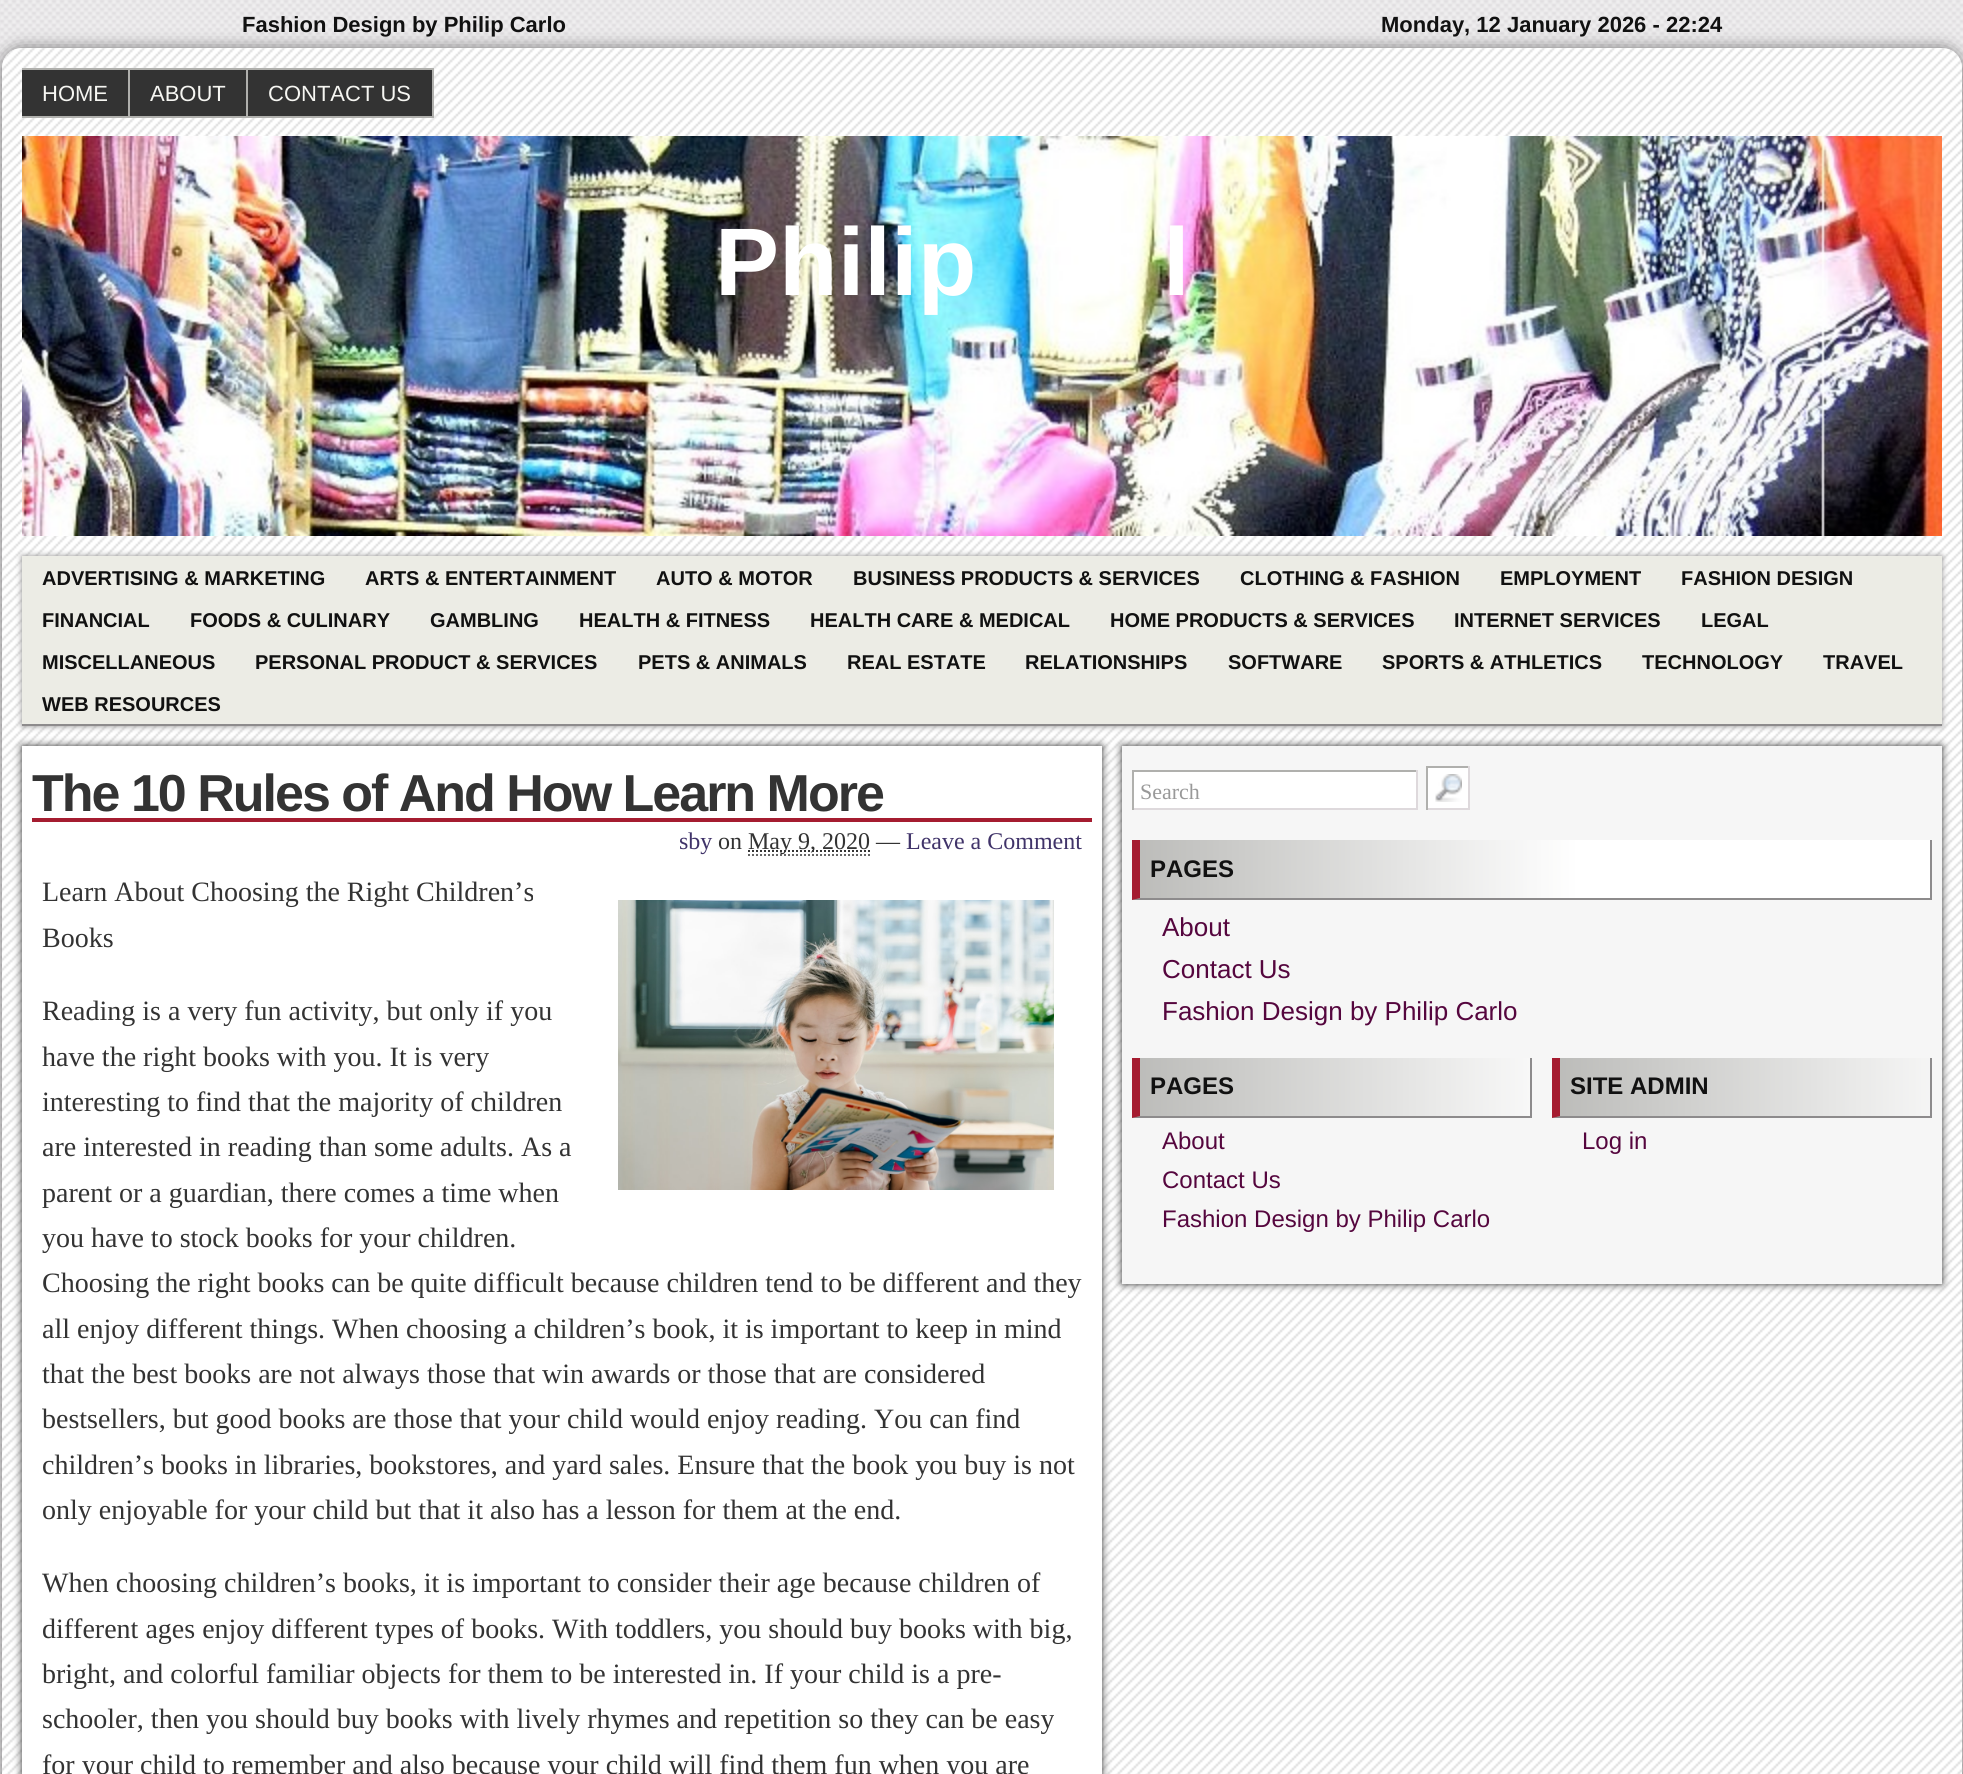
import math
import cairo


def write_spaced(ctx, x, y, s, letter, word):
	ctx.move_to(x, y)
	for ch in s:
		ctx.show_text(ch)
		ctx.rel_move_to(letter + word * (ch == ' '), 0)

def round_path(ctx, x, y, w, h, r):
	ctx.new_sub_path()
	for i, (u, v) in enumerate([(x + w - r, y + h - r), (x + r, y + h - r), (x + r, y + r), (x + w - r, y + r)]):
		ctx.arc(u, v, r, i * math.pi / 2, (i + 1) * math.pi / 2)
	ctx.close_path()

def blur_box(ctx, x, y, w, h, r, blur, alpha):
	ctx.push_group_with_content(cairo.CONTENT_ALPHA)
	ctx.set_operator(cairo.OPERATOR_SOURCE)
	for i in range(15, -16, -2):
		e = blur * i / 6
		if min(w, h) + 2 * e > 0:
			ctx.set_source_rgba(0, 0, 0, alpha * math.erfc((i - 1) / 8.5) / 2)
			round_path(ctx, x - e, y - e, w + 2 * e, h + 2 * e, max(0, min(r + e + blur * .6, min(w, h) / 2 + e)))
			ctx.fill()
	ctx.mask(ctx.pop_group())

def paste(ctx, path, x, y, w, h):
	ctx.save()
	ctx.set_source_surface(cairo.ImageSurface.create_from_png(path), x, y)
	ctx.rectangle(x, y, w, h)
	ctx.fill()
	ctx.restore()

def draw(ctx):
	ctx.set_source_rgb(1, 1, 1)
	ctx.paint()
	paste(ctx, 'media/1.png', 0, 0, 1963, 1774)
	ctx.set_source_rgb(0, 0, 0)
	blur_box(ctx, 2, 48, 1960, 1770, 20, 8, 0.5)
	ctx.select_font_face('Liberation Sans', cairo.FONT_SLANT_NORMAL, cairo.FONT_WEIGHT_BOLD)
	ctx.set_font_size(22)
	ctx.set_source_rgb(0.067, 0.067, 0.067)
	ctx.move_to(242, 32)
	ctx.show_text('Fashion Design by Philip Carlo')
	ctx.move_to(1381, 32)
	ctx.show_text('Monday, 12 January 2026 - 22:24')
	ctx.set_source_rgb(0.922, 0.922, 0.922)
	round_path(ctx, 2, 48, 1960, 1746, 20)
	ctx.fill()
	paste(ctx, 'media/2.png', 2, 48, 1960, 1726)
	ctx.set_source_rgb(0.69, 0.69, 0.678)
	ctx.rectangle(22, 116, 412, 2)
	ctx.fill()
	ctx.set_source_rgb(0.2, 0.2, 0.2)
	ctx.rectangle(22, 70, 106, 46)
	ctx.fill()
	ctx.set_source_rgb(0.69, 0.69, 0.678)
	ctx.rectangle(22, 68, 412, 2)
	ctx.rectangle(128, 68, 2, 50)
	ctx.fill()
	ctx.select_font_face('Liberation Sans')
	ctx.set_source_rgb(0.961, 0.961, 0.949)
	ctx.move_to(42, 101)
	ctx.show_text('HOME')
	ctx.set_source_rgb(0.2, 0.2, 0.2)
	ctx.rectangle(130, 70, 116, 46)
	ctx.fill()
	ctx.set_source_rgb(0.69, 0.69, 0.678)
	ctx.rectangle(246, 68, 2, 50)
	ctx.fill()
	ctx.set_source_rgb(0.961, 0.961, 0.949)
	ctx.move_to(150, 101)
	ctx.show_text('ABOUT')
	ctx.set_source_rgb(0.2, 0.2, 0.2)
	ctx.rectangle(248, 70, 184, 46)
	ctx.fill()
	ctx.set_source_rgb(0.69, 0.69, 0.678)
	ctx.rectangle(432, 68, 2, 50)
	ctx.fill()
	ctx.set_source_rgb(0.961, 0.961, 0.949)
	ctx.move_to(268, 101)
	ctx.show_text('CONTACT US')
	paste(ctx, 'media/3.png', 22, 136, 1920, 400)
	ctx.select_font_face('Liberation Sans', cairo.FONT_SLANT_NORMAL, cairo.FONT_WEIGHT_BOLD)
	ctx.set_font_size(96)
	ctx.set_source_rgb(1, 1, 1)
	ctx.move_to(715, 295)
	ctx.show_text('Philip')
	ctx.move_to(1163, 295)
	ctx.show_text('l')
	ctx.set_source_rgb(0.553, 0.545, 0.549)
	blur_box(ctx, 22, 556, 1920, 170, 0, 3, 1)
	ctx.set_source_rgb(0.922, 0.922, 0.898)
	ctx.rectangle(22, 556, 1920, 168)
	ctx.fill()
	ctx.set_source_rgb(0.553, 0.545, 0.549)
	ctx.rectangle(22, 724, 1920, 2)
	ctx.fill()
	ctx.set_font_size(20)
	ctx.set_source_rgb(0.067, 0.067, 0.067)
	for x, y, s in [
		(42, 585, 'ADVERTISING & MARKETING'),
		(365, 585, 'ARTS & ENTERTAINMENT'),
		(656, 585, 'AUTO & MOTOR'),
		(853, 585, 'BUSINESS PRODUCTS & SERVICES'),
		(1240, 585, 'CLOTHING & FASHION'),
		(1500, 585, 'EMPLOYMENT'),
		(1681, 585, 'FASHION DESIGN'),
		(42, 627, 'FINANCIAL'),
		(190, 627, 'FOODS & CULINARY'),
		(430, 627, 'GAMBLING'),
		(579, 627, 'HEALTH & FITNESS'),
		(810, 627, 'HEALTH CARE & MEDICAL'),
		(1110, 627, 'HOME PRODUCTS & SERVICES'),
		(1454, 627, 'INTERNET SERVICES'),
		(1701, 627, 'LEGAL'),
		(42, 669, 'MISCELLANEOUS'),
		(255, 669, 'PERSONAL PRODUCT & SERVICES'),
		(638, 669, 'PETS & ANIMALS'),
		(847, 669, 'REAL ESTATE'),
		(1025, 669, 'RELATIONSHIPS'),
		(1228, 669, 'SOFTWARE'),
		(1382, 669, 'SPORTS & ATHLETICS'),
		(1642, 669, 'TECHNOLOGY'),
		(1823, 669, 'TRAVEL'),
		(42, 711, 'WEB RESOURCES'),
	]:
		ctx.move_to(x, y)
		ctx.show_text(s)
	ctx.set_source_rgb(0.2, 0.2, 0.2)
	blur_box(ctx, 22, 746, 1080, 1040, 0, 4, 1)
	ctx.set_source_rgb(1, 1, 1)
	ctx.rectangle(22, 746, 1080, 1028)
	ctx.fill()
	ctx.set_source_rgb(0.647, 0.11, 0.188)
	ctx.rectangle(32, 818, 1060, 4)
	ctx.fill()
	ctx.set_font_size(52)
	ctx.set_source_rgb(0.2, 0.2, 0.2)
	write_spaced(ctx, 32, 811, 'The 10 Rules of And How Learn More', -2, 0)
	ctx.select_font_face('Liberation Serif')
	ctx.set_font_size(24)
	ctx.set_source_rgb(0.251, 0.2, 0.412)
	ctx.move_to(679, 849)
	ctx.show_text('sby')
	ctx.set_source_rgb(0.2, 0.2, 0.2)
	ctx.move_to(718, 849)
	ctx.show_text('on')
	ctx.new_path()
	ctx.move_to(748, 855)
	ctx.line_to(870, 855)
	ctx.set_source_rgb(0.4, 0.4, 0.4)
	ctx.set_dash([2, 2])
	ctx.stroke()
	ctx.new_path()
	ctx.move_to(748, 851)
	ctx.line_to(870, 851)
	ctx.set_source_rgb(0.2, 0.2, 0.2)
	ctx.stroke()
	ctx.move_to(748, 849)
	ctx.show_text('May 9, 2020 —')
	ctx.set_source_rgb(0.251, 0.2, 0.412)
	ctx.move_to(906, 849)
	ctx.show_text('Leave a Comment')
	ctx.set_font_size(28)
	ctx.set_source_rgb(0.2, 0.2, 0.2)
	ctx.move_to(42, 901)
	ctx.show_text('Learn About Choosing the Right Children’s')
	ctx.move_to(42, 947)
	ctx.show_text('Books')
	paste(ctx, 'media/4.png', 618, 900, 436, 290)
	for x, y, s in [
		(42, 1020, 'Reading is a very fun activity, but only if you'),
		(42, 1066, 'have the right books with you. It is very'),
		(42, 1111, 'interesting to find that the majority of children'),
		(42, 1156, 'are interested in reading than some adults. As a'),
		(42, 1202, 'parent or a guardian, there comes a time when'),
		(42, 1247, 'you have to stock books for your children.'),
		(42, 1292, 'Choosing the right books can be quite difficult because children tend to be different and they'),
		(42, 1338, 'all enjoy different things. When choosing a children’s book, it is important to keep in mind'),
		(42, 1383, 'that the best books are not always those that win awards or those that are considered'),
		(42, 1428, 'bestsellers, but good books are those that your child would enjoy reading. You can find'),
		(42, 1474, 'children’s books in libraries, bookstores, and yard sales. Ensure that the book you buy is not'),
		(42, 1519, 'only enjoyable for your child but that it also has a lesson for them at the end.'),
		(42, 1592, 'When choosing children’s books, it is important to consider their age because children of'),
		(42, 1638, 'different ages enjoy different types of books. With toddlers, you should buy books with big,'),
		(42, 1683, 'bright, and colorful familiar objects for them to be interested in. If your child is a pre-'),
		(42, 1728, 'schooler, then you should buy books with lively rhymes and repetition so they can be easy'),
		(42, 1774, 'for your child to remember and also because your child will find them fun when you are'),
	]:
		ctx.move_to(x, y)
		ctx.show_text(s)
	ctx.set_source_rgb(0.2, 0.2, 0.2)
	blur_box(ctx, 1122, 746, 820, 538, 0, 4, 1)
	ctx.set_source_rgb(0.961, 0.961, 0.961)
	ctx.rectangle(1122, 746, 820, 538)
	ctx.fill()
	ctx.set_source_rgb(0.69, 0.69, 0.678)
	ctx.rectangle(1426, 766, 44, 2)
	ctx.fill()
	ctx.set_source_rgb(0.871, 0.851, 0.863)
	ctx.rectangle(1468, 766, 2, 44)
	ctx.rectangle(1426, 808, 44, 2)
	ctx.fill()
	ctx.set_source_rgb(0.69, 0.69, 0.678)
	ctx.rectangle(1426, 766, 2, 44)
	ctx.fill()
	ctx.set_source_rgb(1, 1, 1)
	ctx.rectangle(1428, 768, 40, 40)
	ctx.rectangle(1134, 772, 282, 36)
	ctx.fill()
	ctx.set_source_rgb(0.69, 0.69, 0.678)
	ctx.rectangle(1132, 770, 286, 2)
	ctx.fill()
	ctx.set_source_rgb(0.871, 0.851, 0.863)
	ctx.rectangle(1416, 770, 2, 40)
	ctx.rectangle(1132, 808, 286, 2)
	ctx.fill()
	ctx.set_source_rgb(0.69, 0.69, 0.678)
	ctx.rectangle(1132, 770, 2, 40)
	ctx.fill()
	ctx.set_font_size(22)
	ctx.set_source_rgb(0.6, 0.6, 0.6)
	ctx.move_to(1140, 799)
	ctx.show_text('Search')
	paste(ctx, 'media/5.png', 1435, 774, 27, 28)
	ctx.set_source_rgb(0.69, 0.69, 0.678)
	ctx.rectangle(1132, 840, 443, 60)
	ctx.fill()
	paste(ctx, 'media/6.png', 1140, 840, 790, 58)
	ctx.set_source_rgb(0.553, 0.545, 0.549)
	ctx.rectangle(1930, 840, 2, 60)
	ctx.fill()
	ctx.new_path()
	ctx.move_to(1932, 900)
	ctx.line_to(1132, 900)
	ctx.line_to(1140, 898)
	ctx.line_to(1930, 898)
	ctx.close_path()
	ctx.fill()
	ctx.set_source_rgb(0.647, 0.11, 0.188)
	ctx.new_path()
	ctx.move_to(1132, 900)
	ctx.line_to(1132, 840)
	ctx.line_to(1140, 840)
	ctx.line_to(1140, 898)
	ctx.close_path()
	ctx.fill()
	ctx.select_font_face('Liberation Sans', cairo.FONT_SLANT_NORMAL, cairo.FONT_WEIGHT_BOLD)
	ctx.set_font_size(24)
	ctx.set_source_rgb(0.067, 0.067, 0.067)
	ctx.move_to(1150, 877)
	ctx.show_text('PAGES')
	ctx.select_font_face('Liberation Sans')
	ctx.set_font_size(26)
	ctx.set_source_rgb(0.333, 0.027, 0.243)
	for x, y, s in [
		(1162, 936, 'About'),
		(1162, 978, 'Contact Us'),
		(1162, 1020, 'Fashion Design by Philip Carlo'),
	]:
		ctx.move_to(x, y)
		ctx.show_text(s)
	ctx.set_source_rgb(0.69, 0.69, 0.678)
	ctx.rectangle(1132, 1058, 398, 60)
	ctx.fill()
	paste(ctx, 'media/7.png', 1140, 1058, 390, 58)
	ctx.set_source_rgb(0.553, 0.545, 0.549)
	ctx.rectangle(1530, 1058, 2, 60)
	ctx.fill()
	ctx.new_path()
	ctx.move_to(1532, 1118)
	ctx.line_to(1132, 1118)
	ctx.line_to(1140, 1116)
	ctx.line_to(1530, 1116)
	ctx.close_path()
	ctx.fill()
	ctx.set_source_rgb(0.647, 0.11, 0.188)
	ctx.new_path()
	ctx.move_to(1132, 1118)
	ctx.line_to(1132, 1058)
	ctx.line_to(1140, 1058)
	ctx.line_to(1140, 1116)
	ctx.close_path()
	ctx.fill()
	ctx.select_font_face('Liberation Sans', cairo.FONT_SLANT_NORMAL, cairo.FONT_WEIGHT_BOLD)
	ctx.set_font_size(24)
	ctx.set_source_rgb(0.067, 0.067, 0.067)
	ctx.move_to(1150, 1094)
	ctx.show_text('PAGES')
	ctx.select_font_face('Liberation Sans')
	ctx.set_source_rgb(0.333, 0.027, 0.243)
	for x, y, s in [
		(1162, 1149, 'About'),
		(1162, 1188, 'Contact Us'),
		(1162, 1227, 'Fashion Design by Philip Carlo'),
	]:
		ctx.move_to(x, y)
		ctx.show_text(s)
	ctx.set_source_rgb(0.69, 0.69, 0.678)
	ctx.rectangle(1552, 1058, 378, 60)
	ctx.fill()
	paste(ctx, 'media/8.png', 1560, 1058, 370, 58)
	ctx.set_source_rgb(0.553, 0.545, 0.549)
	ctx.rectangle(1930, 1058, 2, 60)
	ctx.fill()
	ctx.new_path()
	ctx.move_to(1932, 1118)
	ctx.line_to(1552, 1118)
	ctx.line_to(1560, 1116)
	ctx.line_to(1930, 1116)
	ctx.close_path()
	ctx.fill()
	ctx.set_source_rgb(0.647, 0.11, 0.188)
	ctx.new_path()
	ctx.move_to(1552, 1118)
	ctx.line_to(1552, 1058)
	ctx.line_to(1560, 1058)
	ctx.line_to(1560, 1116)
	ctx.close_path()
	ctx.fill()
	ctx.select_font_face('Liberation Sans', cairo.FONT_SLANT_NORMAL, cairo.FONT_WEIGHT_BOLD)
	ctx.set_source_rgb(0.067, 0.067, 0.067)
	ctx.move_to(1570, 1094)
	ctx.show_text('SITE ADMIN')
	ctx.select_font_face('Liberation Sans')
	ctx.set_source_rgb(0.333, 0.027, 0.243)
	ctx.move_to(1582, 1149)
	ctx.show_text('Log in')


surface = cairo.ImageSurface(cairo.FORMAT_RGB24, 1963, 1774)
ctx = cairo.Context(surface)
options = cairo.FontOptions()
options.set_hint_metrics(cairo.HINT_METRICS_OFF)
options.set_hint_style(cairo.HINT_STYLE_NONE)
ctx.set_font_options(options)
ctx.set_miter_limit(4)
draw(ctx)
surface.write_to_png('image.png')
